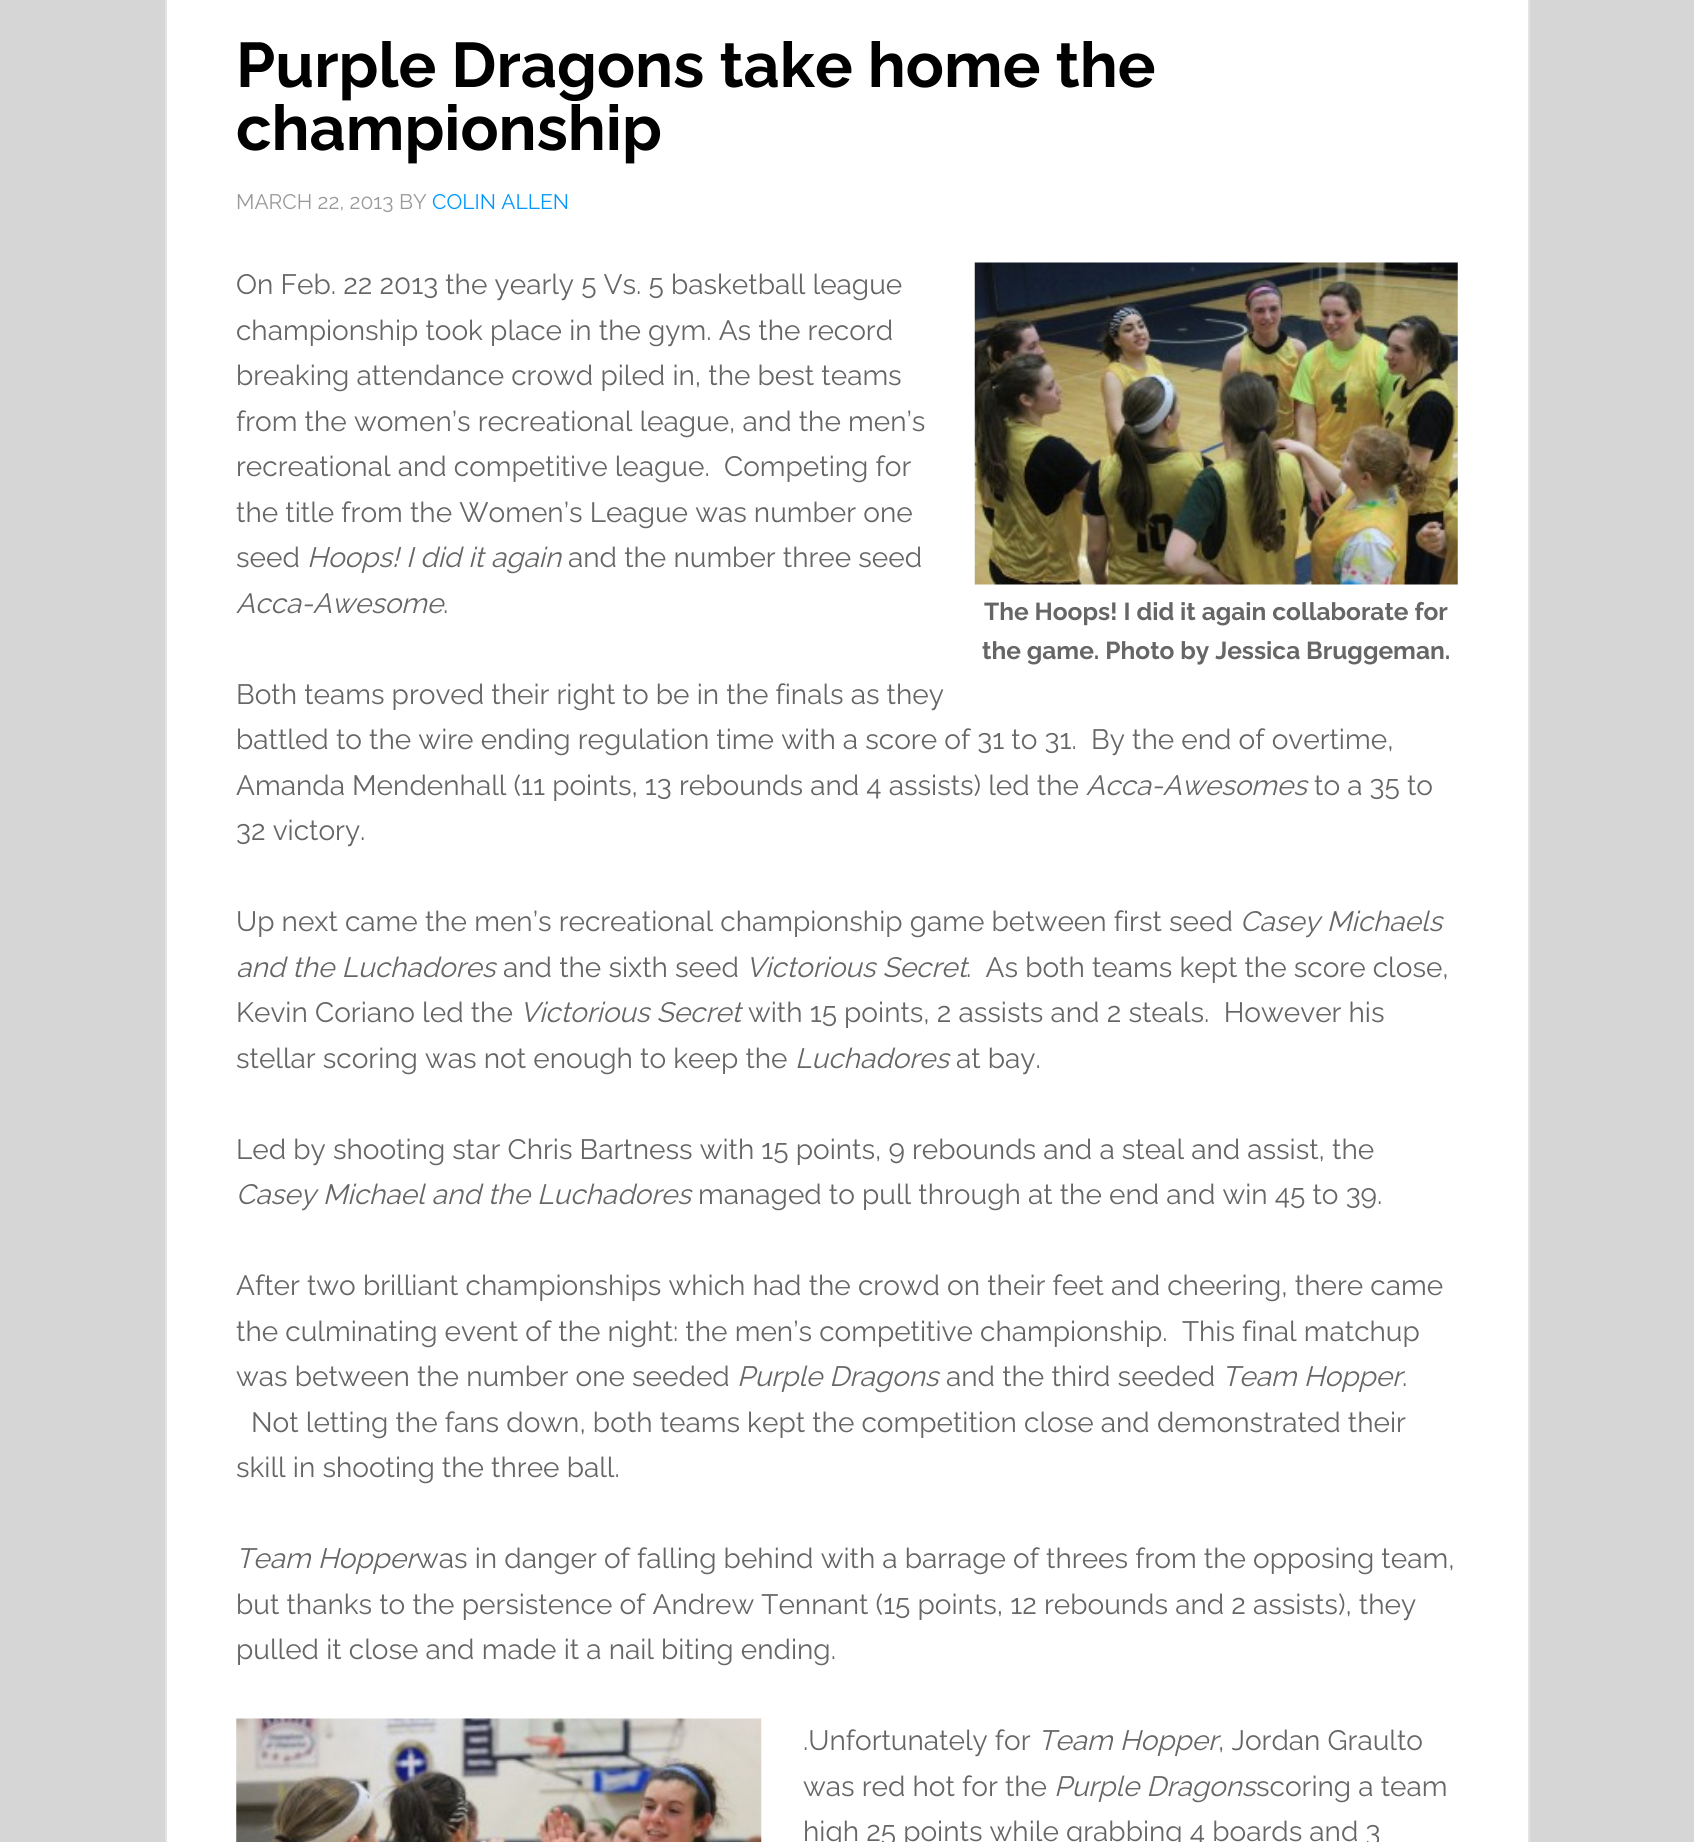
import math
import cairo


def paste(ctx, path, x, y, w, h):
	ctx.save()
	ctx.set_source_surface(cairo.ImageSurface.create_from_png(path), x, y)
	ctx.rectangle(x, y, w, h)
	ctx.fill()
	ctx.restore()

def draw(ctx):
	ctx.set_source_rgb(0.839, 0.839, 0.839)
	ctx.paint()
	ctx.set_source_rgb(1, 1, 1)
	ctx.rectangle(166, -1, 1363, 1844)
	ctx.fill_preserve()
	ctx.set_source_rgb(0.89, 0.89, 0.89)
	ctx.stroke()
	ctx.select_font_face('Raleway', cairo.FONT_SLANT_NORMAL, cairo.FONT_WEIGHT_BOLD)
	ctx.set_font_size(63)
	ctx.set_source_rgb(0, 0, 0)
	ctx.move_to(236, 87)
	ctx.show_text('Purple Dragons take home the')
	ctx.move_to(236, 150)
	ctx.show_text('championship')
	ctx.select_font_face('Raleway')
	ctx.set_font_size(21)
	ctx.set_source_rgb(0.6, 0.6, 0.6)
	ctx.move_to(236, 209)
	ctx.show_text('MARCH 22, 2013 BY')
	ctx.set_source_rgb(0, 0.596, 0.992)
	ctx.move_to(432, 209)
	ctx.show_text('COLIN ALLEN')
	ctx.set_font_size(28)
	ctx.set_source_rgb(0.4, 0.4, 0.4)
	for x, y, s in [
		(236, 294, 'On Feb. 22 2013 the yearly 5 Vs. 5 basketball league'),
		(236, 340, 'championship took place in the gym. As the record'),
		(236, 385, 'breaking attendance crowd piled in, the best teams'),
		(236, 431, 'from the women’s recreational league, and the men’s'),
		(236, 476, 'recreational and competitive league.  Competing for'),
		(236, 522, 'the title from the Women’s League was number one'),
		(236, 567, 'seed'),
	]:
		ctx.move_to(x, y)
		ctx.show_text(s)
	ctx.select_font_face('Raleway', cairo.FONT_SLANT_ITALIC)
	ctx.move_to(307, 567)
	ctx.show_text('Hoops! I did it again')
	ctx.select_font_face('Raleway')
	ctx.move_to(568, 567)
	ctx.show_text('and the number three seed')
	ctx.select_font_face('Raleway', cairo.FONT_SLANT_ITALIC)
	ctx.move_to(236, 613)
	ctx.show_text('Acca-Awesome')
	ctx.select_font_face('Raleway')
	ctx.move_to(443, 613)
	ctx.show_text('.')
	paste(ctx, 'media/1.png', 974, 262, 484, 323)
	ctx.select_font_face('Raleway', cairo.FONT_SLANT_NORMAL, cairo.FONT_WEIGHT_BOLD)
	ctx.set_font_size(24.5)
	ctx.move_to(984, 620)
	ctx.show_text('The Hoops! I did it again collaborate for')
	ctx.move_to(982, 659)
	ctx.show_text('the game. Photo by Jessica Bruggeman.')
	ctx.select_font_face('Raleway')
	ctx.set_font_size(28)
	for x, y, s in [
		(236, 704, 'Both teams proved their right to be in the finals as they'),
		(236, 749, 'battled to the wire ending regulation time with a score of 31 to 31.  By the end of overtime,'),
		(236, 795, 'Amanda Mendenhall (11 points, 13 rebounds and 4 assists) led the'),
	]:
		ctx.move_to(x, y)
		ctx.show_text(s)
	ctx.select_font_face('Raleway', cairo.FONT_SLANT_ITALIC)
	ctx.move_to(1086, 795)
	ctx.show_text('Acca-Awesomes')
	ctx.select_font_face('Raleway')
	for x, y, s in [
		(1314, 795, 'to a 35 to'),
		(236, 840, '32 victory.'),
		(236, 931, 'Up next came the men’s recreational championship game between first seed'),
	]:
		ctx.move_to(x, y)
		ctx.show_text(s)
	ctx.select_font_face('Raleway', cairo.FONT_SLANT_ITALIC)
	ctx.move_to(1240, 931)
	ctx.show_text('Casey Michaels')
	ctx.move_to(236, 977)
	ctx.show_text('and the Luchadores')
	ctx.select_font_face('Raleway')
	ctx.move_to(503, 977)
	ctx.show_text('and the sixth seed')
	ctx.select_font_face('Raleway', cairo.FONT_SLANT_ITALIC)
	ctx.move_to(746, 977)
	ctx.show_text('Victorious Secret')
	ctx.select_font_face('Raleway')
	ctx.move_to(966, 977)
	ctx.show_text('.  As both teams kept the score close,')
	ctx.move_to(236, 1022)
	ctx.show_text('Kevin Coriano led the')
	ctx.select_font_face('Raleway', cairo.FONT_SLANT_ITALIC)
	ctx.move_to(520, 1022)
	ctx.show_text('Victorious Secret')
	ctx.select_font_face('Raleway')
	ctx.move_to(748, 1022)
	ctx.show_text('with 15 points, 2 assists and 2 steals.  However his')
	ctx.move_to(236, 1068)
	ctx.show_text('stellar scoring was not enough to keep the')
	ctx.select_font_face('Raleway', cairo.FONT_SLANT_ITALIC)
	ctx.move_to(795, 1068)
	ctx.show_text('Luchadores')
	ctx.select_font_face('Raleway')
	ctx.move_to(956, 1068)
	ctx.show_text('at bay.')
	ctx.move_to(236, 1159)
	ctx.show_text('Led by shooting star Chris Bartness with 15 points, 9 rebounds and a steal and assist, the')
	ctx.select_font_face('Raleway', cairo.FONT_SLANT_ITALIC)
	ctx.move_to(236, 1204)
	ctx.show_text('Casey Michael and the Luchadores')
	ctx.select_font_face('Raleway')
	for x, y, s in [
		(698, 1204, 'managed to pull through at the end and win 45 to 39.'),
		(236, 1295, 'After two brilliant championships which had the crowd on their feet and cheering, there came'),
		(236, 1341, 'the culminating event of the night: the men’s competitive championship.  This final matchup'),
		(236, 1386, 'was between the number one seeded'),
	]:
		ctx.move_to(x, y)
		ctx.show_text(s)
	ctx.select_font_face('Raleway', cairo.FONT_SLANT_ITALIC)
	ctx.move_to(737, 1386)
	ctx.show_text('Purple Dragons')
	ctx.select_font_face('Raleway')
	ctx.move_to(946, 1386)
	ctx.show_text('and the third seeded')
	ctx.select_font_face('Raleway', cairo.FONT_SLANT_ITALIC)
	ctx.move_to(1222, 1386)
	ctx.show_text('Team Hopper')
	ctx.select_font_face('Raleway')
	for x, y, s in [
		(1402, 1386, '.'),
		(251, 1432, 'Not letting the fans down, both teams kept the competition close and demonstrated their'),
		(236, 1477, 'skill in shooting the three ball.'),
	]:
		ctx.move_to(x, y)
		ctx.show_text(s)
	ctx.select_font_face('Raleway', cairo.FONT_SLANT_ITALIC)
	ctx.move_to(236, 1568)
	ctx.show_text('Team Hopper')
	ctx.select_font_face('Raleway')
	for x, y, s in [
		(416, 1568, 'was in danger of falling behind with a barrage of threes from the opposing team,'),
		(236, 1614, 'but thanks to the persistence of Andrew Tennant (15 points, 12 rebounds and 2 assists), they'),
		(236, 1659, 'pulled it close and made it a nail biting ending.'),
	]:
		ctx.move_to(x, y)
		ctx.show_text(s)
	paste(ctx, 'media/2.png', 236, 1718, 526, 124)
	ctx.move_to(803, 1750)
	ctx.show_text('.Unfortunately for')
	ctx.select_font_face('Raleway', cairo.FONT_SLANT_ITALIC)
	ctx.move_to(1038, 1750)
	ctx.show_text('Team Hopper')
	ctx.select_font_face('Raleway')
	ctx.move_to(1218, 1750)
	ctx.show_text(', Jordan Graulto')
	ctx.move_to(803, 1796)
	ctx.show_text('was red hot for the')
	ctx.select_font_face('Raleway', cairo.FONT_SLANT_ITALIC)
	ctx.move_to(1054, 1796)
	ctx.show_text('Purple Dragons')
	ctx.select_font_face('Raleway')
	ctx.move_to(1256, 1796)
	ctx.show_text('scoring a team')
	ctx.move_to(803, 1841)
	ctx.show_text('high 25 points while grabbing 4 boards and 3')


surface = cairo.ImageSurface(cairo.FORMAT_RGB24, 1694, 1842)
ctx = cairo.Context(surface)
options = cairo.FontOptions()
options.set_hint_metrics(cairo.HINT_METRICS_OFF)
options.set_hint_style(cairo.HINT_STYLE_NONE)
ctx.set_font_options(options)
ctx.set_miter_limit(4)
draw(ctx)
surface.write_to_png('image.png')
